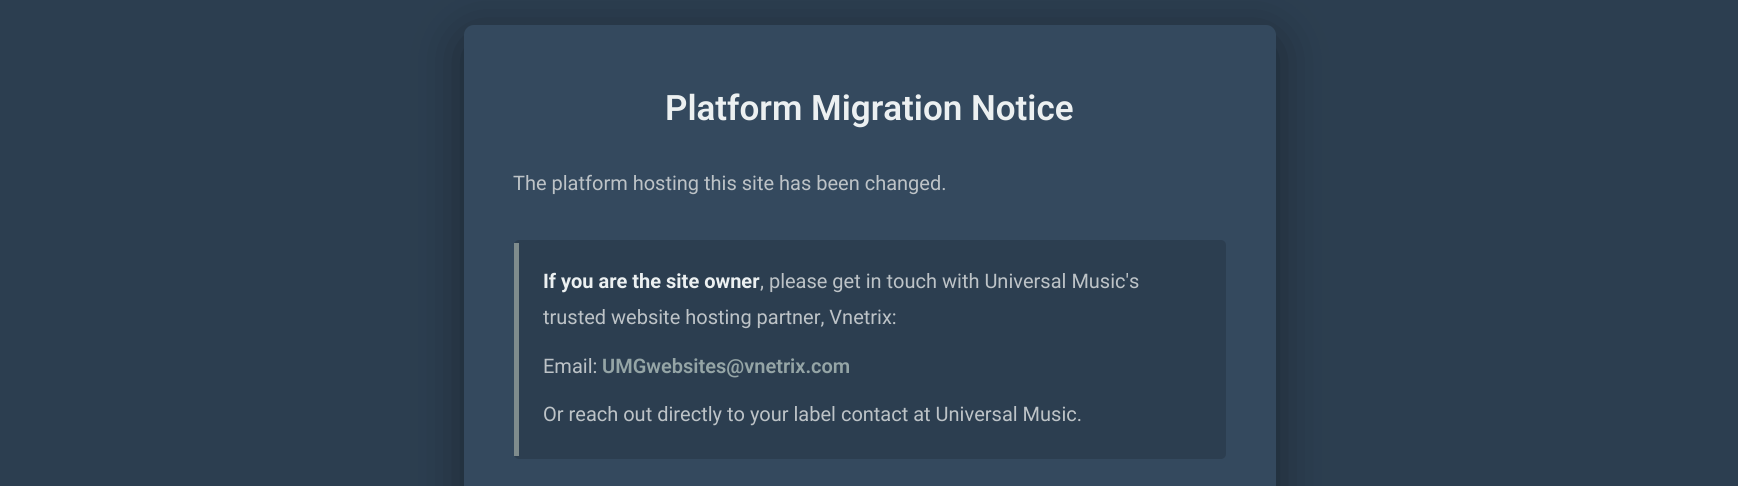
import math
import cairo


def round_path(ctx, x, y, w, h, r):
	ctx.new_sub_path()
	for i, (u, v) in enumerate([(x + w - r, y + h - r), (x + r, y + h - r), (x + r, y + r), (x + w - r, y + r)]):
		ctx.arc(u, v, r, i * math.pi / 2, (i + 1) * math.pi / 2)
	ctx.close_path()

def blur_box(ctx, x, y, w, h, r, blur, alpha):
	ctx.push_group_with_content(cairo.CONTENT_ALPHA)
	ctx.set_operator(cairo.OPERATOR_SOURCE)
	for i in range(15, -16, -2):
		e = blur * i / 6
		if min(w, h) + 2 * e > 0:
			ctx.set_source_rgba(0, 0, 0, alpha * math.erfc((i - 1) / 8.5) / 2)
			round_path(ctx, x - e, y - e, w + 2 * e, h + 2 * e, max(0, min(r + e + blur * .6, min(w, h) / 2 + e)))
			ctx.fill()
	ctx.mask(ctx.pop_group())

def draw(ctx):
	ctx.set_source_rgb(0.173, 0.243, 0.314)
	ctx.paint()
	ctx.set_source_rgb(0, 0, 0)
	blur_box(ctx, 464, 38, 812, 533, 10, 25, 0.4)
	ctx.set_source_rgb(0.204, 0.286, 0.369)
	round_path(ctx, 464, 25, 812, 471, 10)
	ctx.fill()
	ctx.select_font_face('Roboto SemiBold')
	ctx.set_font_size(35)
	ctx.set_source_rgb(0.925, 0.941, 0.945)
	ctx.move_to(665, 120)
	ctx.show_text('Platform Migration Notice')
	ctx.select_font_face('Roboto')
	ctx.set_font_size(20)
	ctx.set_source_rgb(0.741, 0.765, 0.78)
	ctx.move_to(513, 190)
	ctx.show_text('The platform hosting this site has been changed.')
	ctx.set_source_rgb(0.173, 0.243, 0.314)
	round_path(ctx, 514, 240, 712, 219, 5)
	ctx.fill()
	ctx.set_source_rgb(0.498, 0.549, 0.553)
	ctx.rectangle(514, 243, 5, 213)
	ctx.fill()
	ctx.select_font_face('Roboto', cairo.FONT_SLANT_NORMAL, cairo.FONT_WEIGHT_BOLD)
	ctx.set_source_rgb(0.925, 0.941, 0.945)
	ctx.move_to(543, 288)
	ctx.show_text('If you are the site owner')
	ctx.select_font_face('Roboto')
	ctx.set_source_rgb(0.741, 0.765, 0.78)
	for x, y, s in [
		(760, 288, ', please get in touch with Universal Music\'s'),
		(543, 324, 'trusted website hosting partner, Vnetrix:'),
		(543, 373, 'Email:'),
	]:
		ctx.move_to(x, y)
		ctx.show_text(s)
	ctx.select_font_face('Roboto SemiBold')
	ctx.set_source_rgb(0.584, 0.647, 0.651)
	ctx.move_to(602, 373)
	ctx.show_text('UMGwebsites@vnetrix.com')
	ctx.select_font_face('Roboto')
	ctx.set_source_rgb(0.741, 0.765, 0.78)
	ctx.move_to(543, 421)
	ctx.show_text('Or reach out directly to your label contact at Universal Music.')


surface = cairo.ImageSurface(cairo.FORMAT_RGB24, 1738, 486)
ctx = cairo.Context(surface)
options = cairo.FontOptions()
options.set_hint_metrics(cairo.HINT_METRICS_OFF)
options.set_hint_style(cairo.HINT_STYLE_NONE)
ctx.set_font_options(options)
ctx.set_miter_limit(4)
draw(ctx)
surface.write_to_png('image.png')
